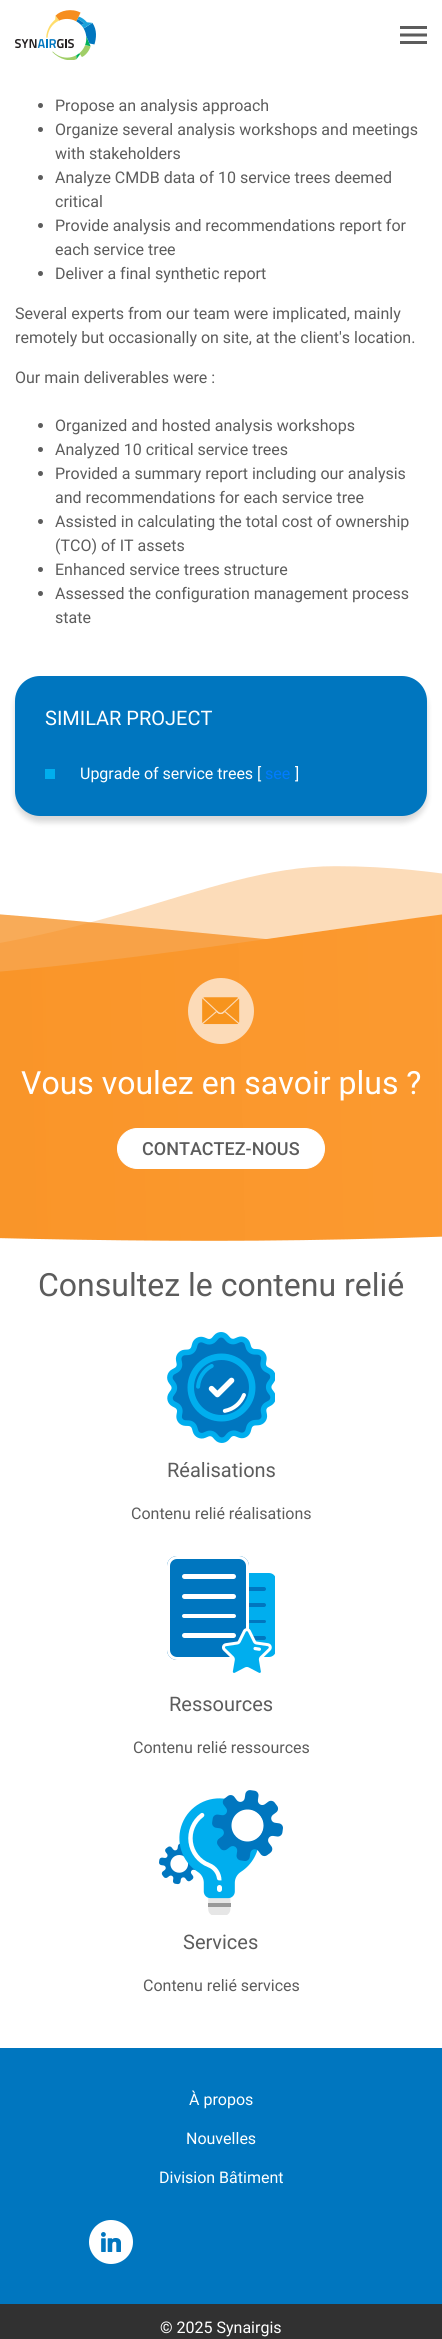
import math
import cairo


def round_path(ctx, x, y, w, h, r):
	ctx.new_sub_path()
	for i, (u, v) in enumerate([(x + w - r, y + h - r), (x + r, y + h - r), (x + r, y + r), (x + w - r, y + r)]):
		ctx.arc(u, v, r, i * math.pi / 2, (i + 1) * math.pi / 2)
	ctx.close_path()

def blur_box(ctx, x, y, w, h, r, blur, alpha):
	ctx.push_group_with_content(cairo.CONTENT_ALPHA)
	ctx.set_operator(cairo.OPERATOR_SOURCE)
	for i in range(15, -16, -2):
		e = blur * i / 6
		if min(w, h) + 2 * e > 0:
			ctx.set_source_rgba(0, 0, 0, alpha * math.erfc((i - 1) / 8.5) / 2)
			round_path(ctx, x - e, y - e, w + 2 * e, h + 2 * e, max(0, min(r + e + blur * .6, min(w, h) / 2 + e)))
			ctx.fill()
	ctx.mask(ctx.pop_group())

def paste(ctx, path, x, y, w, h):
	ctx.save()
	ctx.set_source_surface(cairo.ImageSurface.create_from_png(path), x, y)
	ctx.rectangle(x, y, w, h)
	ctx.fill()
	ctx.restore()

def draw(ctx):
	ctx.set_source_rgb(1, 1, 1)
	ctx.paint()
	paste(ctx, 'media/1.png', 15, 10, 81, 50)
	paste(ctx, 'media/2.png', 400, 26, 27, 18)
	ctx.set_source_rgb(0.361, 0.361, 0.361)
	ctx.arc(40.5, 105.5, 2.5, 0, 2 * math.pi)
	ctx.fill()
	ctx.select_font_face('Roboto')
	ctx.set_font_size(16)
	ctx.move_to(55, 111)
	ctx.show_text('Propose an analysis approach')
	ctx.new_path()
	ctx.arc(40.5, 129.5, 2.5, 0, 2 * math.pi)
	ctx.fill()
	ctx.move_to(55, 135)
	ctx.show_text('Organize several analysis workshops and meetings')
	ctx.move_to(55, 159)
	ctx.show_text('with stakeholders')
	ctx.new_path()
	ctx.arc(40.5, 177.5, 2.5, 0, 2 * math.pi)
	ctx.fill()
	ctx.move_to(55, 183)
	ctx.show_text('Analyze CMDB data of 10 service trees deemed')
	ctx.move_to(55, 207)
	ctx.show_text('critical')
	ctx.new_path()
	ctx.arc(40.5, 225.5, 2.5, 0, 2 * math.pi)
	ctx.fill()
	ctx.move_to(55, 231)
	ctx.show_text('Provide analysis and recommendations report for')
	ctx.move_to(55, 255)
	ctx.show_text('each service tree')
	ctx.new_path()
	ctx.arc(40.5, 273.5, 2.5, 0, 2 * math.pi)
	ctx.fill()
	for x, y, s in [
		(55, 279, 'Deliver a final synthetic report'),
		(15, 319, 'Several experts from our team were implicated, mainly'),
		(15, 343, 'remotely but occasionally on site, at the client\'s location.'),
		(15, 383, 'Our main deliverables were :'),
	]:
		ctx.move_to(x, y)
		ctx.show_text(s)
	ctx.new_path()
	ctx.arc(40.5, 425.5, 2.5, 0, 2 * math.pi)
	ctx.fill()
	ctx.move_to(55, 431)
	ctx.show_text('Organized and hosted analysis workshops')
	ctx.new_path()
	ctx.arc(40.5, 449.5, 2.5, 0, 2 * math.pi)
	ctx.fill()
	ctx.move_to(55, 455)
	ctx.show_text('Analyzed 10 critical service trees')
	ctx.new_path()
	ctx.arc(40.5, 473.5, 2.5, 0, 2 * math.pi)
	ctx.fill()
	ctx.move_to(55, 479)
	ctx.show_text('Provided a summary report including our analysis')
	ctx.move_to(55, 503)
	ctx.show_text('and recommendations for each service tree')
	ctx.new_path()
	ctx.arc(40.5, 521.5, 2.5, 0, 2 * math.pi)
	ctx.fill()
	ctx.move_to(55, 527)
	ctx.show_text('Assisted in calculating the total cost of ownership')
	ctx.move_to(55, 551)
	ctx.show_text('(TCO) of IT assets')
	ctx.new_path()
	ctx.arc(40.5, 569.5, 2.5, 0, 2 * math.pi)
	ctx.fill()
	ctx.move_to(55, 575)
	ctx.show_text('Enhanced service trees structure')
	ctx.new_path()
	ctx.arc(40.5, 593.5, 2.5, 0, 2 * math.pi)
	ctx.fill()
	ctx.move_to(55, 599)
	ctx.show_text('Assessed the configuration management process')
	ctx.move_to(55, 623)
	ctx.show_text('state')
	ctx.set_source_rgb(0, 0, 0)
	blur_box(ctx, 15, 682, 412, 140, 25, 3, 0.16)
	ctx.set_source_rgb(0, 0.463, 0.749)
	round_path(ctx, 15, 676, 412, 140, 25)
	ctx.fill()
	ctx.set_font_size(20)
	ctx.set_source_rgb(1, 1, 1)
	ctx.move_to(45, 725)
	ctx.show_text('SIMILAR PROJECT')
	ctx.set_source_rgb(0, 0.682, 0.933)
	ctx.rectangle(45, 769, 10, 10)
	ctx.fill()
	ctx.set_font_size(16)
	ctx.set_source_rgb(1, 1, 1)
	ctx.move_to(80, 779)
	ctx.show_text('Upgrade of service trees [')
	ctx.set_source_rgb(0, 0.482, 1)
	ctx.move_to(265, 779)
	ctx.show_text('see')
	ctx.set_source_rgb(1, 1, 1)
	ctx.move_to(295, 779)
	ctx.show_text(']')
	paste(ctx, 'media/3.png', 0, 866, 442, 375)
	paste(ctx, 'media/4.png', 188, 978, 66, 66)
	ctx.set_font_size(32)
	ctx.move_to(21, 1094)
	ctx.show_text('Vous voulez en savoir plus ?')
	round_path(ctx, 117.5, 1128.5, 207, 40, 20)
	ctx.fill_preserve()
	ctx.set_line_width(1)
	ctx.stroke()
	ctx.select_font_face('Roboto Medium')
	ctx.set_font_size(18)
	ctx.set_source_rgb(0.361, 0.361, 0.361)
	ctx.move_to(142, 1155)
	ctx.show_text('CONTACTEZ-NOUS')
	ctx.select_font_face('Roboto')
	ctx.set_font_size(32)
	ctx.move_to(38, 1296)
	ctx.show_text('Consultez le contenu relié')
	paste(ctx, 'media/5.png', 167, 1332, 108, 111)
	ctx.set_font_size(20)
	ctx.move_to(167, 1477)
	ctx.show_text('Réalisations')
	ctx.set_font_size(16)
	ctx.move_to(131, 1519)
	ctx.show_text('Contenu relié réalisations')
	paste(ctx, 'media/6.png', 167, 1556, 108, 117)
	ctx.set_font_size(20)
	ctx.move_to(169, 1711)
	ctx.show_text('Ressources')
	ctx.set_font_size(16)
	ctx.move_to(133, 1753)
	ctx.show_text('Contenu relié ressources')
	paste(ctx, 'media/7.png', 159, 1790, 124, 125)
	ctx.set_font_size(20)
	ctx.move_to(183, 1949)
	ctx.show_text('Services')
	ctx.set_font_size(16)
	ctx.move_to(143, 1991)
	ctx.show_text('Contenu relié services')
	ctx.set_source_rgb(0, 0.463, 0.749)
	ctx.rectangle(0, 2048, 442, 256)
	ctx.fill()
	ctx.set_source_rgb(1, 1, 1)
	for x, y, s in [
		(189, 2105, 'À propos'),
		(186, 2144, 'Nouvelles'),
		(159, 2183, 'Division Bâtiment'),
	]:
		ctx.move_to(x, y)
		ctx.show_text(s)
	ctx.new_path()
	ctx.arc(111, 2242, 22, 0, 2 * math.pi)
	ctx.fill()
	paste(ctx, 'media/8.png', 101, 2232, 20, 20)
	ctx.set_source_rgb(0.192, 0.192, 0.192)
	ctx.rectangle(0, 2304, 442, 35)
	ctx.fill()
	ctx.set_source_rgb(1, 1, 1)
	ctx.move_to(160, 2333)
	ctx.show_text('© 2025 Synairgis')


surface = cairo.ImageSurface(cairo.FORMAT_RGB24, 442, 2339)
ctx = cairo.Context(surface)
options = cairo.FontOptions()
options.set_hint_metrics(cairo.HINT_METRICS_OFF)
options.set_hint_style(cairo.HINT_STYLE_NONE)
ctx.set_font_options(options)
ctx.set_miter_limit(4)
draw(ctx)
surface.write_to_png('image.png')
